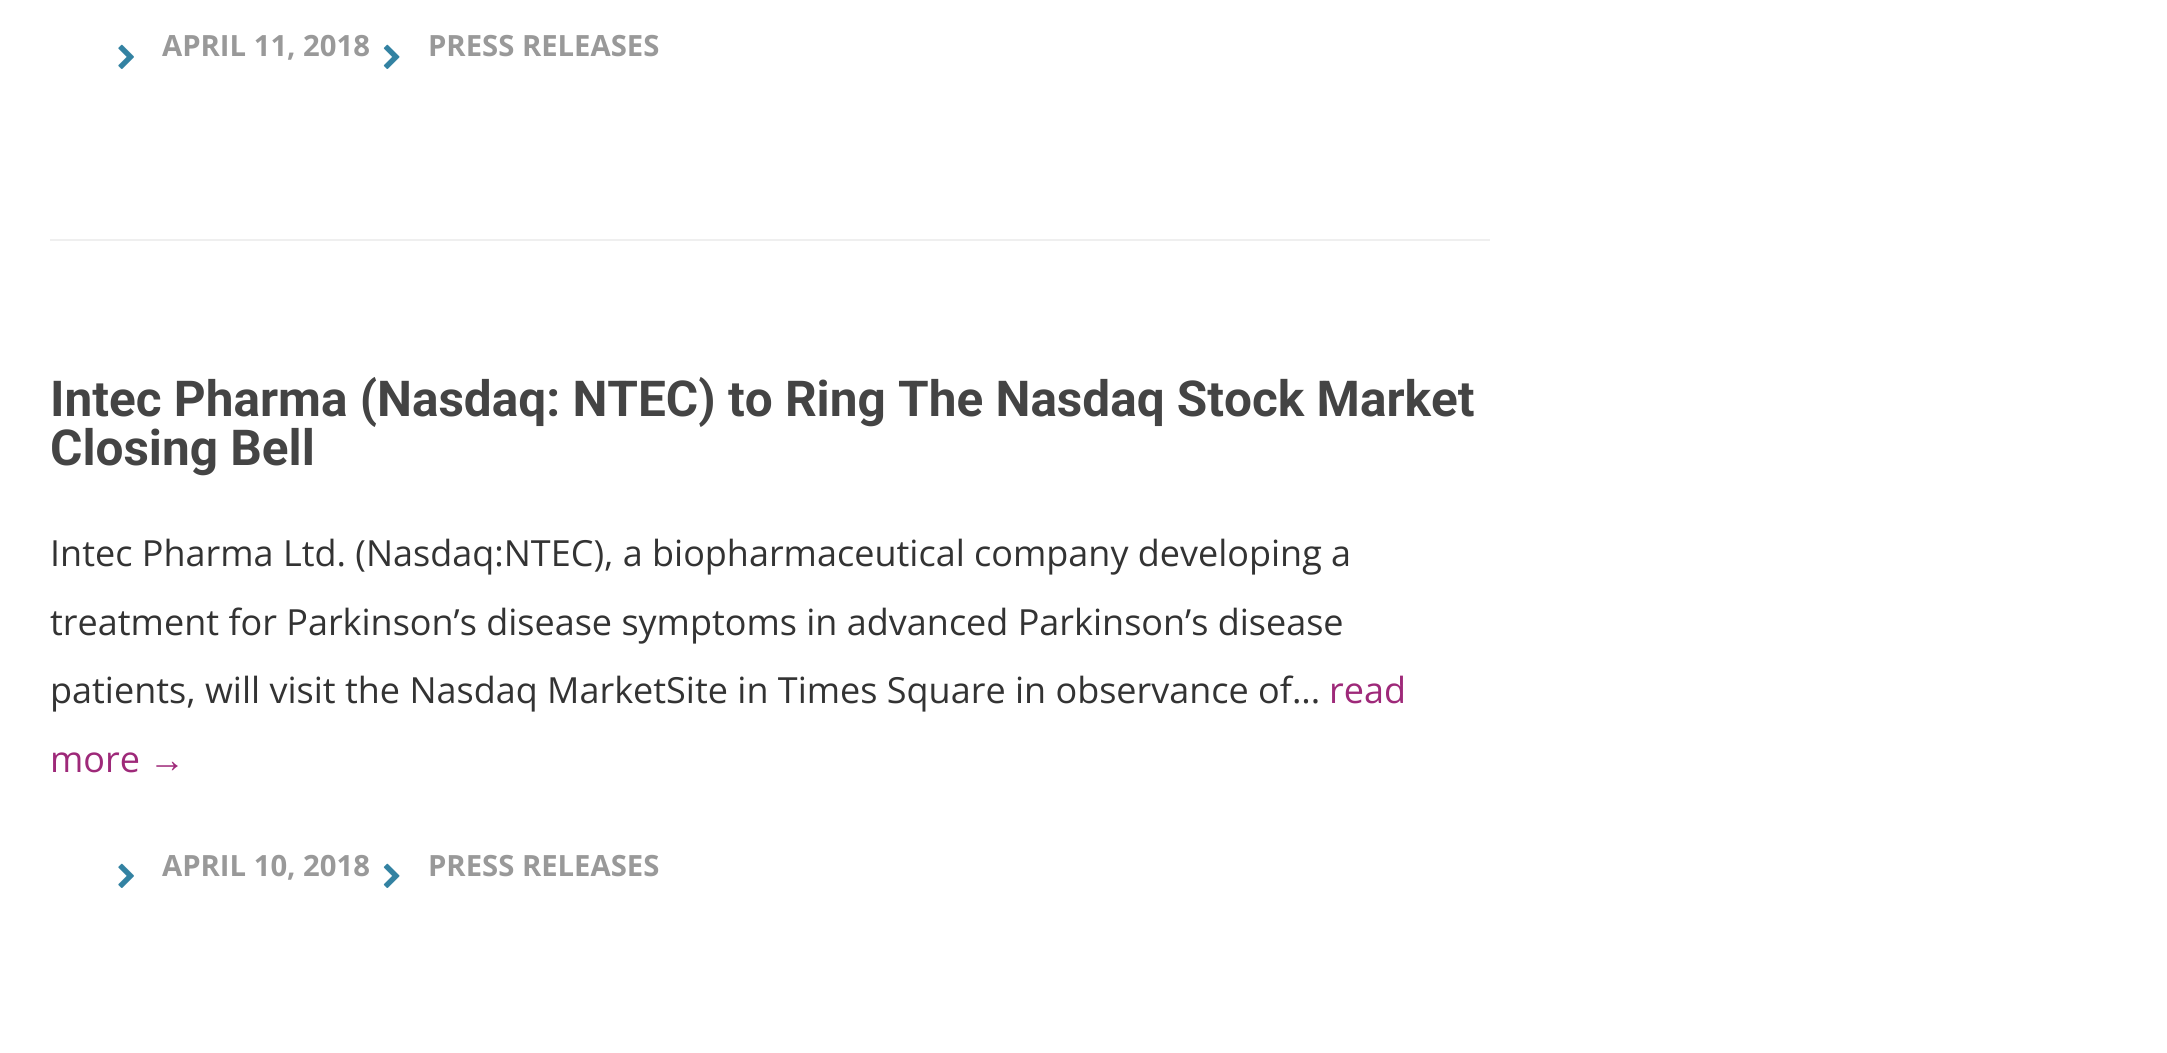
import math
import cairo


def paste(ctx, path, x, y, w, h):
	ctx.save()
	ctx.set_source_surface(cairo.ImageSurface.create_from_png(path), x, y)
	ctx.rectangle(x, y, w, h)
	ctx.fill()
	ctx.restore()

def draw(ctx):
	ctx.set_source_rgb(1, 1, 1)
	ctx.paint()
	ctx.set_source_rgb(0.937, 0.937, 0.937)
	ctx.rectangle(50, 239, 1440, 2)
	ctx.fill()
	paste(ctx, 'media/1.png', 118, 44, 16, 25)
	ctx.select_font_face('Open Sans', cairo.FONT_SLANT_NORMAL, cairo.FONT_WEIGHT_BOLD)
	ctx.set_font_size(29.25)
	ctx.set_source_rgb(0.6, 0.6, 0.6)
	ctx.move_to(162, 56)
	ctx.show_text('APRIL 11, 2018')
	paste(ctx, 'media/2.png', 383, 44, 17, 25)
	ctx.move_to(428, 56)
	ctx.show_text('PRESS RELEASES')
	ctx.select_font_face('Roboto', cairo.FONT_SLANT_NORMAL, cairo.FONT_WEIGHT_BOLD)
	ctx.set_font_size(49.5)
	ctx.set_source_rgb(0.267, 0.267, 0.267)
	ctx.move_to(50, 416)
	ctx.show_text('Intec Pharma (Nasdaq: NTEC) to Ring The Nasdaq Stock Market')
	ctx.move_to(50, 465)
	ctx.show_text('Closing Bell')
	ctx.select_font_face('Open Sans')
	ctx.set_font_size(36)
	ctx.set_source_rgb(0.2, 0.2, 0.2)
	for x, y, s in [
		(50, 566, 'Intec Pharma Ltd. (Nasdaq:NTEC), a biopharmaceutical company developing a'),
		(50, 635, 'treatment for Parkinson’s disease symptoms in advanced Parkinson’s disease'),
		(50, 703, 'patients, will visit the Nasdaq MarketSite in Times Square in observance of...'),
	]:
		ctx.move_to(x, y)
		ctx.show_text(s)
	ctx.set_source_rgb(0.62, 0.161, 0.475)
	ctx.move_to(1329, 703)
	ctx.show_text('read')
	ctx.move_to(50, 772)
	ctx.show_text('more')
	ctx.select_font_face('Liberation Sans')
	ctx.move_to(149, 772)
	ctx.show_text('→')
	paste(ctx, 'media/1.png', 118, 863, 16, 25)
	ctx.select_font_face('Open Sans', cairo.FONT_SLANT_NORMAL, cairo.FONT_WEIGHT_BOLD)
	ctx.set_font_size(29.25)
	ctx.set_source_rgb(0.6, 0.6, 0.6)
	ctx.move_to(162, 876)
	ctx.show_text('APRIL 10, 2018')
	paste(ctx, 'media/3.png', 383, 863, 17, 25)
	ctx.move_to(428, 876)
	ctx.show_text('PRESS RELEASES')


surface = cairo.ImageSurface(cairo.FORMAT_RGB24, 2167, 1053)
ctx = cairo.Context(surface)
options = cairo.FontOptions()
options.set_hint_metrics(cairo.HINT_METRICS_OFF)
options.set_hint_style(cairo.HINT_STYLE_NONE)
ctx.set_font_options(options)
ctx.set_miter_limit(4)
draw(ctx)
surface.write_to_png('image.png')
